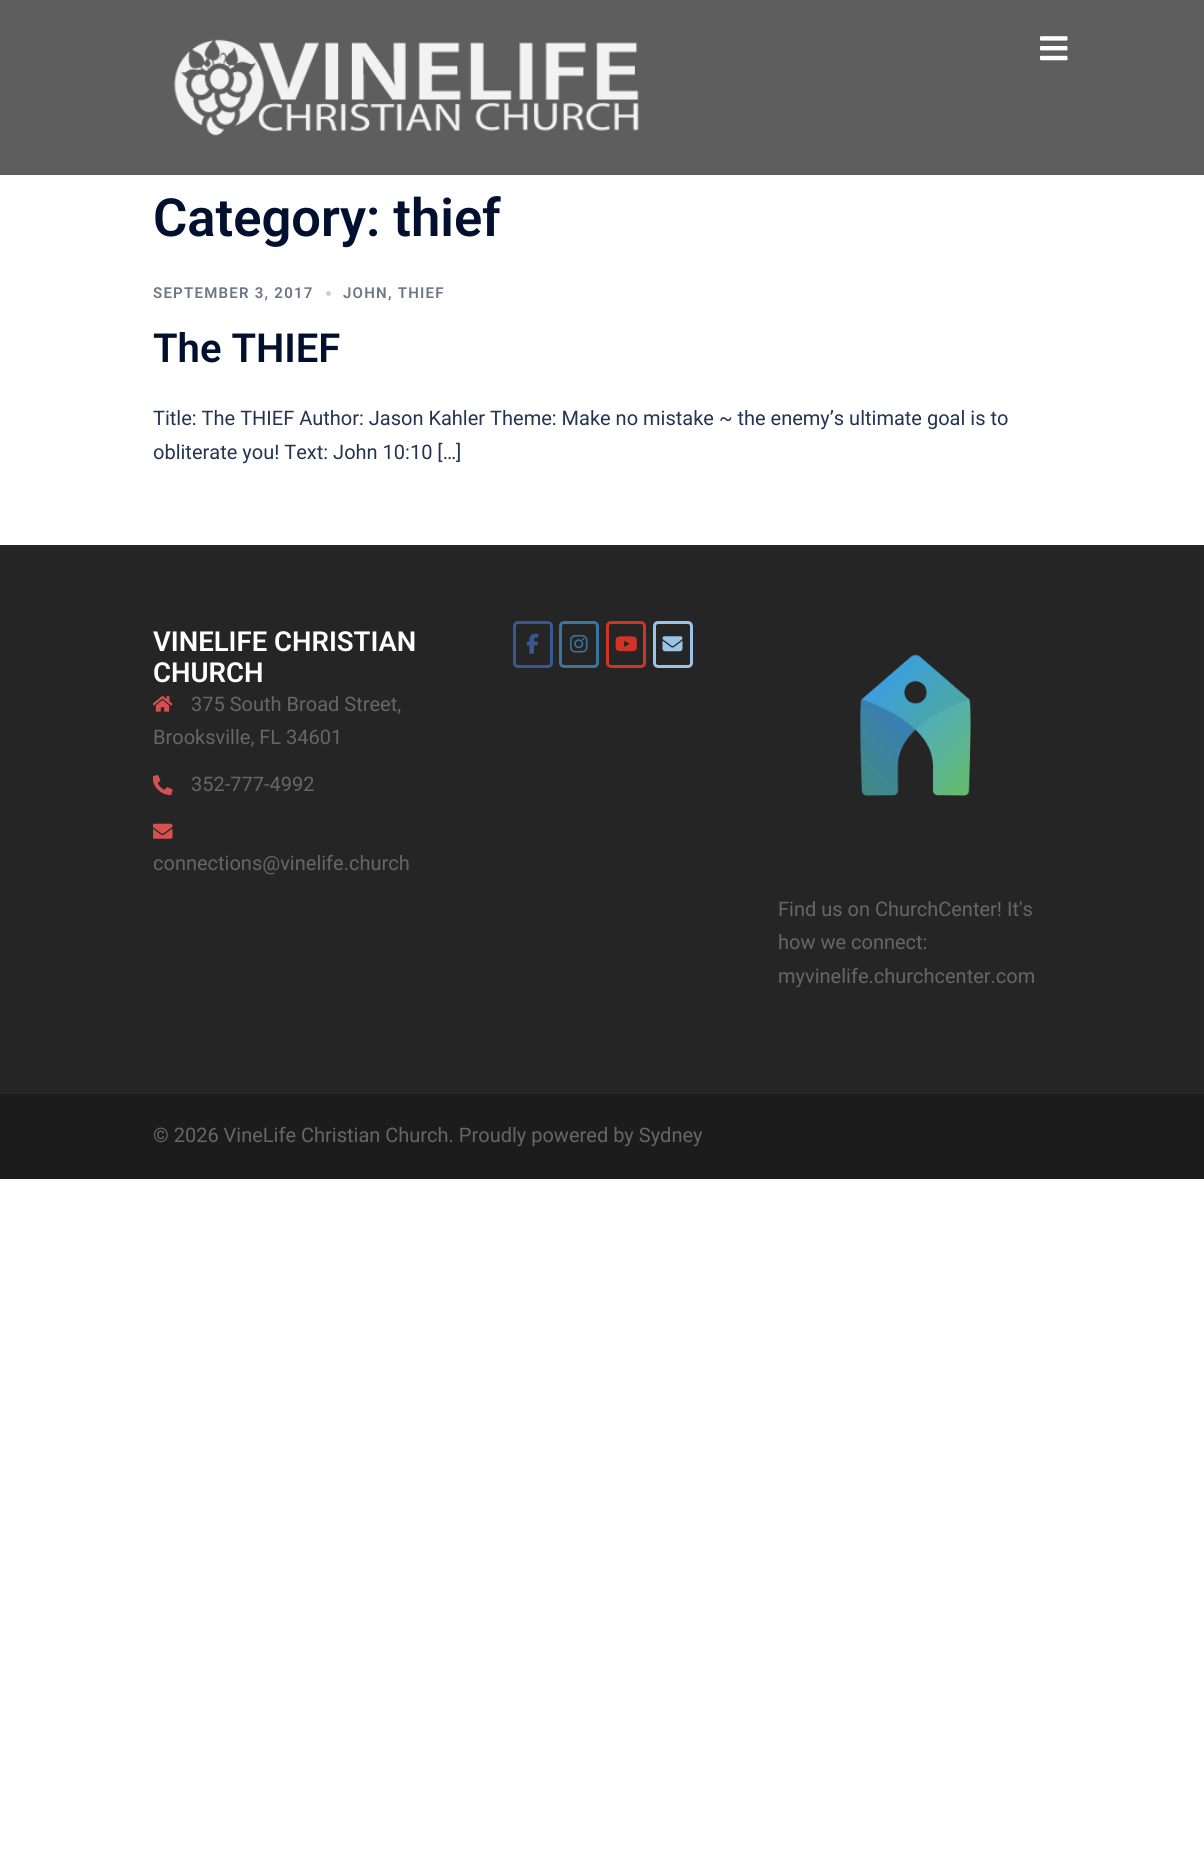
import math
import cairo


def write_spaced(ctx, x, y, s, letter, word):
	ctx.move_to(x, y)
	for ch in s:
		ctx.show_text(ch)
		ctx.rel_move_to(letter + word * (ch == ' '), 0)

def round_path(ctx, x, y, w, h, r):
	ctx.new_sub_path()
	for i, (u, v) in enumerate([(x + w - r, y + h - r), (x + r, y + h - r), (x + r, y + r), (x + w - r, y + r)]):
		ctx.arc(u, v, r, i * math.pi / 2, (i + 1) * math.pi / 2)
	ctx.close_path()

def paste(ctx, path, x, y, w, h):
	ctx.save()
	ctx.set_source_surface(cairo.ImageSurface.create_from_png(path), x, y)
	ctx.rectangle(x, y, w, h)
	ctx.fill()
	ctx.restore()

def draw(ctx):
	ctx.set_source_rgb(1, 1, 1)
	ctx.paint()
	ctx.set_source_rgb(0.369, 0.369, 0.369)
	ctx.rectangle(0, 0, 1204, 175)
	ctx.fill()
	paste(ctx, 'media/1.png', 174, 39, 465, 97)
	paste(ctx, 'media/2.png', 1040, 36, 28, 25)
	ctx.select_font_face('Roboto SemiBold')
	ctx.set_font_size(52.5)
	ctx.set_source_rgb(0, 0.063, 0.18)
	ctx.move_to(153, 236)
	ctx.show_text('Category: thief')
	ctx.set_font_size(15)
	ctx.set_source_rgb(0.427, 0.463, 0.522)
	write_spaced(ctx, 153, 298, 'SEPTEMBER 3, 2017', 1.25, 0)
	ctx.set_source_rgb(0.8, 0.812, 0.835)
	ctx.new_path()
	ctx.arc(328.5, 293.5, 2.5, 0, 2 * math.pi)
	ctx.fill()
	ctx.set_source_rgb(0.427, 0.463, 0.522)
	write_spaced(ctx, 343, 298, 'JOHN, THIEF', 1.25, 0)
	ctx.set_font_size(40)
	ctx.set_source_rgb(0, 0.063, 0.18)
	ctx.move_to(153, 362)
	ctx.show_text('The THIEF')
	ctx.select_font_face('Roboto')
	ctx.set_font_size(20)
	ctx.set_source_rgb(0.137, 0.204, 0.322)
	ctx.move_to(153, 425)
	ctx.show_text('Title: The THIEF Author: Jason Kahler Theme: Make no mistake ~ the enemy’s ultimate goal is to')
	ctx.move_to(153, 459)
	ctx.show_text('obliterate you! Text: John 10:10 […]')
	ctx.set_source_rgb(0.145, 0.145, 0.145)
	ctx.rectangle(0, 545, 1204, 549)
	ctx.fill()
	ctx.select_font_face('Roboto SemiBold')
	ctx.set_font_size(27.5)
	ctx.set_source_rgb(1, 1, 1)
	ctx.move_to(153, 651)
	ctx.show_text('VINELIFE CHRISTIAN')
	ctx.move_to(153, 682)
	ctx.show_text('CHURCH')
	paste(ctx, 'media/3.png', 153, 696, 20, 16)
	ctx.select_font_face('Roboto')
	ctx.set_font_size(20)
	ctx.set_source_rgb(0.4, 0.4, 0.4)
	ctx.move_to(191, 711)
	ctx.show_text('375 South Broad Street,')
	ctx.move_to(153, 744)
	ctx.show_text('Brooksville, FL 34601')
	paste(ctx, 'media/4.png', 153, 775, 20, 20)
	ctx.move_to(191, 791)
	ctx.show_text('352-777-4992')
	paste(ctx, 'media/5.png', 153, 823, 20, 16)
	ctx.move_to(153, 870)
	ctx.show_text('connections@vinelife.church')
	round_path(ctx, 514.5, 622.5, 37, 44, 3.5)
	ctx.set_source_rgb(0.227, 0.341, 0.584)
	ctx.set_line_width(3)
	ctx.stroke()
	paste(ctx, 'media/6.png', 526, 633, 13, 21)
	round_path(ctx, 560.5, 622.5, 37, 44, 3.5)
	ctx.set_source_rgb(0.239, 0.451, 0.612)
	ctx.stroke()
	paste(ctx, 'media/7.png', 570, 635, 18, 18)
	round_path(ctx, 607.5, 622.5, 37, 44, 3.5)
	ctx.set_source_rgb(0.812, 0.204, 0.153)
	ctx.stroke()
	paste(ctx, 'media/8.png', 615, 636, 22, 16)
	round_path(ctx, 654.5, 622.5, 37, 44, 3.5)
	ctx.set_source_rgb(0.6, 0.769, 0.902)
	ctx.stroke()
	paste(ctx, 'media/9.png', 662, 636, 21, 16)
	paste(ctx, 'media/10.png', 860, 654, 111, 142)
	ctx.set_source_rgb(0.4, 0.4, 0.4)
	for x, y, s in [
		(778, 916, 'Find us on ChurchCenter! It\'s'),
		(778, 949, 'how we connect:'),
		(778, 983, 'myvinelife.churchcenter.com'),
	]:
		ctx.move_to(x, y)
		ctx.show_text(s)
	ctx.set_source_rgb(0.11, 0.11, 0.11)
	ctx.rectangle(0, 1094, 1204, 85)
	ctx.fill()
	ctx.set_source_rgb(0.4, 0.4, 0.4)
	ctx.move_to(153, 1142)
	ctx.show_text('© 2026 VineLife Christian Church. Proudly powered by Sydney')


surface = cairo.ImageSurface(cairo.FORMAT_RGB24, 1204, 1876)
ctx = cairo.Context(surface)
options = cairo.FontOptions()
options.set_hint_metrics(cairo.HINT_METRICS_OFF)
options.set_hint_style(cairo.HINT_STYLE_NONE)
ctx.set_font_options(options)
ctx.set_miter_limit(4)
draw(ctx)
surface.write_to_png('image.png')
